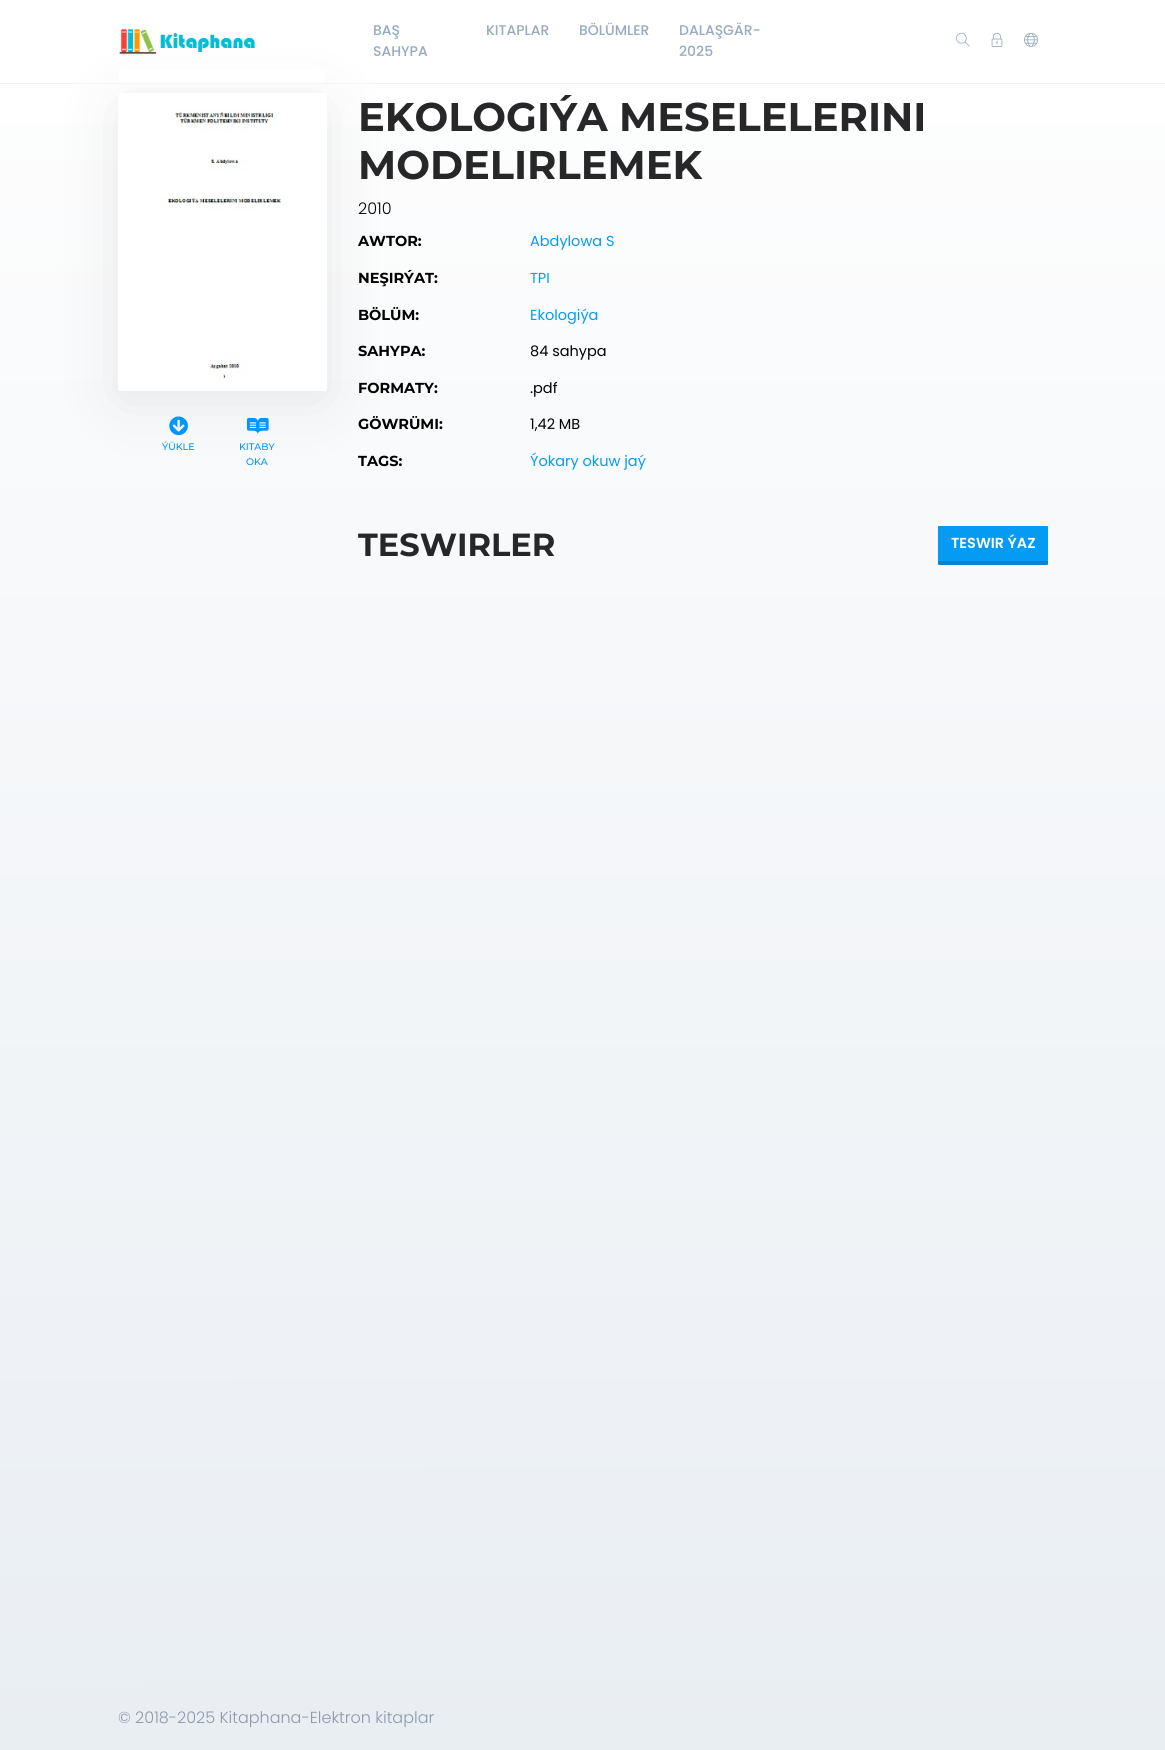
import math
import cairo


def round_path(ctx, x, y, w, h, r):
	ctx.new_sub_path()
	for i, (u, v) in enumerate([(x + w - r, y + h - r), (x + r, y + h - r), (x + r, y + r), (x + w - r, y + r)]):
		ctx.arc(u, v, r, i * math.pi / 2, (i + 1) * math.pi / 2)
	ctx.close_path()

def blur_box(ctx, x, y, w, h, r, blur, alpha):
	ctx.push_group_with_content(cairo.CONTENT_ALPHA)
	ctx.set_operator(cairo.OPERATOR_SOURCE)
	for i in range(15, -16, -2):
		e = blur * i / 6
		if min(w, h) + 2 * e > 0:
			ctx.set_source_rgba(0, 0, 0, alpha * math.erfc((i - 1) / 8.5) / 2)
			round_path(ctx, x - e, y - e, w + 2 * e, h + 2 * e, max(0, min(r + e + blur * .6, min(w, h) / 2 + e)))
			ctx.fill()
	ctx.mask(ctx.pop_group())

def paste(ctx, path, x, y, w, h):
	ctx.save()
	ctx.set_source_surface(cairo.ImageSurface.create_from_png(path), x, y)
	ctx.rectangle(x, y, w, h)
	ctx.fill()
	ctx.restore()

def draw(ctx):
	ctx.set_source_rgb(1, 1, 1)
	ctx.paint()
	gradient = cairo.LinearGradient(582, 0, 583, 1750)
	gradient.add_color_stop_rgba(0, 0.996, 0.996, 0.996, 1)
	gradient.add_color_stop_rgba(1, 0.914, 0.933, 0.953, 1)
	ctx.set_source(gradient)
	ctx.rectangle(0, 125, 1165, 1625)
	ctx.fill()
	ctx.save()
	ctx.set_fill_rule(cairo.FILL_RULE_EVEN_ODD)
	ctx.new_path()
	ctx.move_to(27, 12)
	ctx.line_to(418, 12)
	ctx.line_to(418, 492)
	ctx.line_to(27, 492)
	ctx.close_path()
	ctx.move_to(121, 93)
	ctx.line_to(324, 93)
	ctx.curve_to(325.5, 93, 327, 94.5, 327, 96)
	ctx.line_to(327, 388)
	ctx.curve_to(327, 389.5, 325.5, 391, 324, 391)
	ctx.line_to(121, 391)
	ctx.curve_to(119.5, 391, 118, 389.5, 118, 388)
	ctx.line_to(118, 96)
	ctx.curve_to(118, 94.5, 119.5, 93, 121, 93)
	ctx.close_path()
	ctx.clip()
	ctx.set_source_rgb(0.114, 0.114, 0.122)
	blur_box(ctx, 118, 103, 209, 298, 3, 30, 0.09)
	ctx.restore()
	ctx.set_source_rgb(1, 1, 1)
	ctx.rectangle(119, 69, 207, 14)
	ctx.fill()
	ctx.set_source_rgb(0.953, 0.953, 0.953)
	ctx.rectangle(0, 83, 1165, 1)
	ctx.fill()
	paste(ctx, 'media/1.png', 119, 29, 136, 25)
	ctx.select_font_face('Poppins Medium')
	ctx.set_font_size(14)
	ctx.set_source_rgb(0.592, 0.667, 0.757)
	for x, y, s in [
		(373, 35, 'BAŞ'),
		(373, 56, 'SAHYPA'),
		(486, 35, 'KITAPLAR'),
		(579, 35, 'BÖLÜMLER'),
		(679, 35, 'DALAŞGÄR-'),
		(679, 56, '2025'),
	]:
		ctx.move_to(x, y)
		ctx.show_text(s)
	paste(ctx, 'media/2.png', 956, 32, 14, 15)
	paste(ctx, 'media/3.png', 991, 32, 12, 15)
	paste(ctx, 'media/4.png', 1024, 32, 14, 15)
	paste(ctx, 'media/5.png', 118, 109, 209, 282)
	paste(ctx, 'media/6.png', 169, 416, 19, 20)
	ctx.select_font_face('Montserrat Medium')
	ctx.set_font_size(9.5)
	ctx.set_source_rgb(0, 0.588, 1)
	ctx.move_to(162, 450)
	ctx.show_text('ÝÜKLE')
	paste(ctx, 'media/7.png', 247, 417, 22, 17)
	ctx.move_to(239, 450)
	ctx.show_text('KITABY')
	ctx.move_to(246, 465)
	ctx.show_text('OKA')
	ctx.select_font_face('Montserrat', cairo.FONT_SLANT_NORMAL, cairo.FONT_WEIGHT_BOLD)
	ctx.set_font_size(40)
	ctx.set_source_rgb(0.153, 0.149, 0.161)
	ctx.move_to(358, 131)
	ctx.show_text('EKOLOGIÝA MESELELERINI')
	ctx.move_to(358, 179)
	ctx.show_text('MODELIRLEMEK')
	ctx.select_font_face('Poppins Light')
	ctx.set_font_size(16)
	ctx.set_source_rgb(0, 0, 0)
	ctx.move_to(358, 214)
	ctx.show_text('2010')
	ctx.select_font_face('Montserrat', cairo.FONT_SLANT_NORMAL, cairo.FONT_WEIGHT_BOLD)
	ctx.set_font_size(14.5)
	ctx.move_to(358, 246)
	ctx.show_text('AWTOR:')
	ctx.select_font_face('Poppins')
	ctx.set_source_rgb(0.02, 0.608, 0.953)
	ctx.move_to(530, 246)
	ctx.show_text('Abdylowa S')
	ctx.select_font_face('Montserrat', cairo.FONT_SLANT_NORMAL, cairo.FONT_WEIGHT_BOLD)
	ctx.set_source_rgb(0, 0, 0)
	ctx.move_to(358, 283)
	ctx.show_text('NEŞIRÝAT:')
	ctx.select_font_face('Poppins')
	ctx.set_source_rgb(0.02, 0.608, 0.953)
	ctx.move_to(530, 283)
	ctx.show_text('TPI')
	ctx.select_font_face('Montserrat', cairo.FONT_SLANT_NORMAL, cairo.FONT_WEIGHT_BOLD)
	ctx.set_source_rgb(0, 0, 0)
	ctx.move_to(358, 320)
	ctx.show_text('BÖLÜM:')
	ctx.select_font_face('Poppins')
	ctx.set_source_rgb(0.02, 0.608, 0.953)
	ctx.move_to(530, 320)
	ctx.show_text('Ekologiýa')
	ctx.select_font_face('Montserrat', cairo.FONT_SLANT_NORMAL, cairo.FONT_WEIGHT_BOLD)
	ctx.set_source_rgb(0, 0, 0)
	ctx.move_to(358, 356)
	ctx.show_text('SAHYPA:')
	ctx.select_font_face('Poppins')
	ctx.move_to(530, 356)
	ctx.show_text('84 sahypa')
	ctx.select_font_face('Montserrat', cairo.FONT_SLANT_NORMAL, cairo.FONT_WEIGHT_BOLD)
	ctx.move_to(358, 393)
	ctx.show_text('FORMATY:')
	ctx.select_font_face('Poppins')
	ctx.move_to(530, 393)
	ctx.show_text('.pdf')
	ctx.select_font_face('Montserrat', cairo.FONT_SLANT_NORMAL, cairo.FONT_WEIGHT_BOLD)
	ctx.move_to(358, 429)
	ctx.show_text('GÖWRÜMI:')
	ctx.select_font_face('Poppins')
	ctx.move_to(530, 429)
	ctx.show_text('1,42 MB')
	ctx.select_font_face('Montserrat', cairo.FONT_SLANT_NORMAL, cairo.FONT_WEIGHT_BOLD)
	ctx.move_to(358, 466)
	ctx.show_text('TAGS:')
	ctx.select_font_face('Poppins')
	ctx.set_source_rgb(0.02, 0.608, 0.953)
	ctx.move_to(530, 466)
	ctx.show_text('Ýokary okuw jaý')
	ctx.select_font_face('Montserrat', cairo.FONT_SLANT_NORMAL, cairo.FONT_WEIGHT_BOLD)
	ctx.set_font_size(32)
	ctx.set_source_rgb(0.153, 0.149, 0.161)
	ctx.move_to(358, 556)
	ctx.show_text('TESWIRLER')
	ctx.set_source_rgb(0.02, 0.51, 0.839)
	ctx.new_path()
	ctx.move_to(938, 560)
	ctx.line_to(938, 564)
	ctx.curve_to(938, 565, 939, 565, 941, 565)
	ctx.line_to(1045, 565)
	ctx.curve_to(1047, 565, 1048, 565, 1048, 564)
	ctx.line_to(1048, 560)
	ctx.curve_to(1048, 561, 1047, 561, 1045, 561)
	ctx.line_to(941, 561)
	ctx.curve_to(939, 561, 938, 561, 938, 560)
	ctx.close_path()
	ctx.fill()
	ctx.set_source_rgb(0.02, 0.608, 0.953)
	ctx.new_path()
	ctx.move_to(941, 526)
	ctx.line_to(1045, 526)
	ctx.curve_to(1047, 526, 1048, 526, 1048, 527)
	ctx.line_to(1048, 560)
	ctx.curve_to(1048, 561, 1047, 561, 1045, 561)
	ctx.line_to(941, 561)
	ctx.curve_to(939, 561, 938, 561, 938, 560)
	ctx.line_to(938, 527)
	ctx.curve_to(938, 526, 939, 526, 941, 526)
	ctx.close_path()
	ctx.fill()
	ctx.new_path()
	ctx.move_to(941.5, 526.5)
	ctx.line_to(1044.5, 526.5)
	ctx.line_to(1047.5, 527)
	ctx.line_to(1047.5, 560)
	ctx.line_to(1044.5, 560.5)
	ctx.line_to(941.5, 560.5)
	ctx.line_to(938.5, 560)
	ctx.line_to(938.5, 527)
	ctx.close_path()
	ctx.set_line_width(1)
	ctx.stroke()
	ctx.select_font_face('Poppins SemiBold')
	ctx.set_font_size(14.5)
	ctx.set_source_rgb(1, 1, 1)
	ctx.move_to(951, 548)
	ctx.show_text('TESWIR ÝAZ')
	ctx.select_font_face('Poppins Light')
	ctx.set_font_size(16)
	ctx.set_source_rgb(0.553, 0.592, 0.678)
	ctx.move_to(118, 1723)
	ctx.show_text('© 2018-2025 Kitaphana-Elektron kitaplar')


surface = cairo.ImageSurface(cairo.FORMAT_RGB24, 1165, 1750)
ctx = cairo.Context(surface)
options = cairo.FontOptions()
options.set_hint_metrics(cairo.HINT_METRICS_OFF)
options.set_hint_style(cairo.HINT_STYLE_NONE)
ctx.set_font_options(options)
ctx.set_miter_limit(4)
draw(ctx)
surface.write_to_png('image.png')
